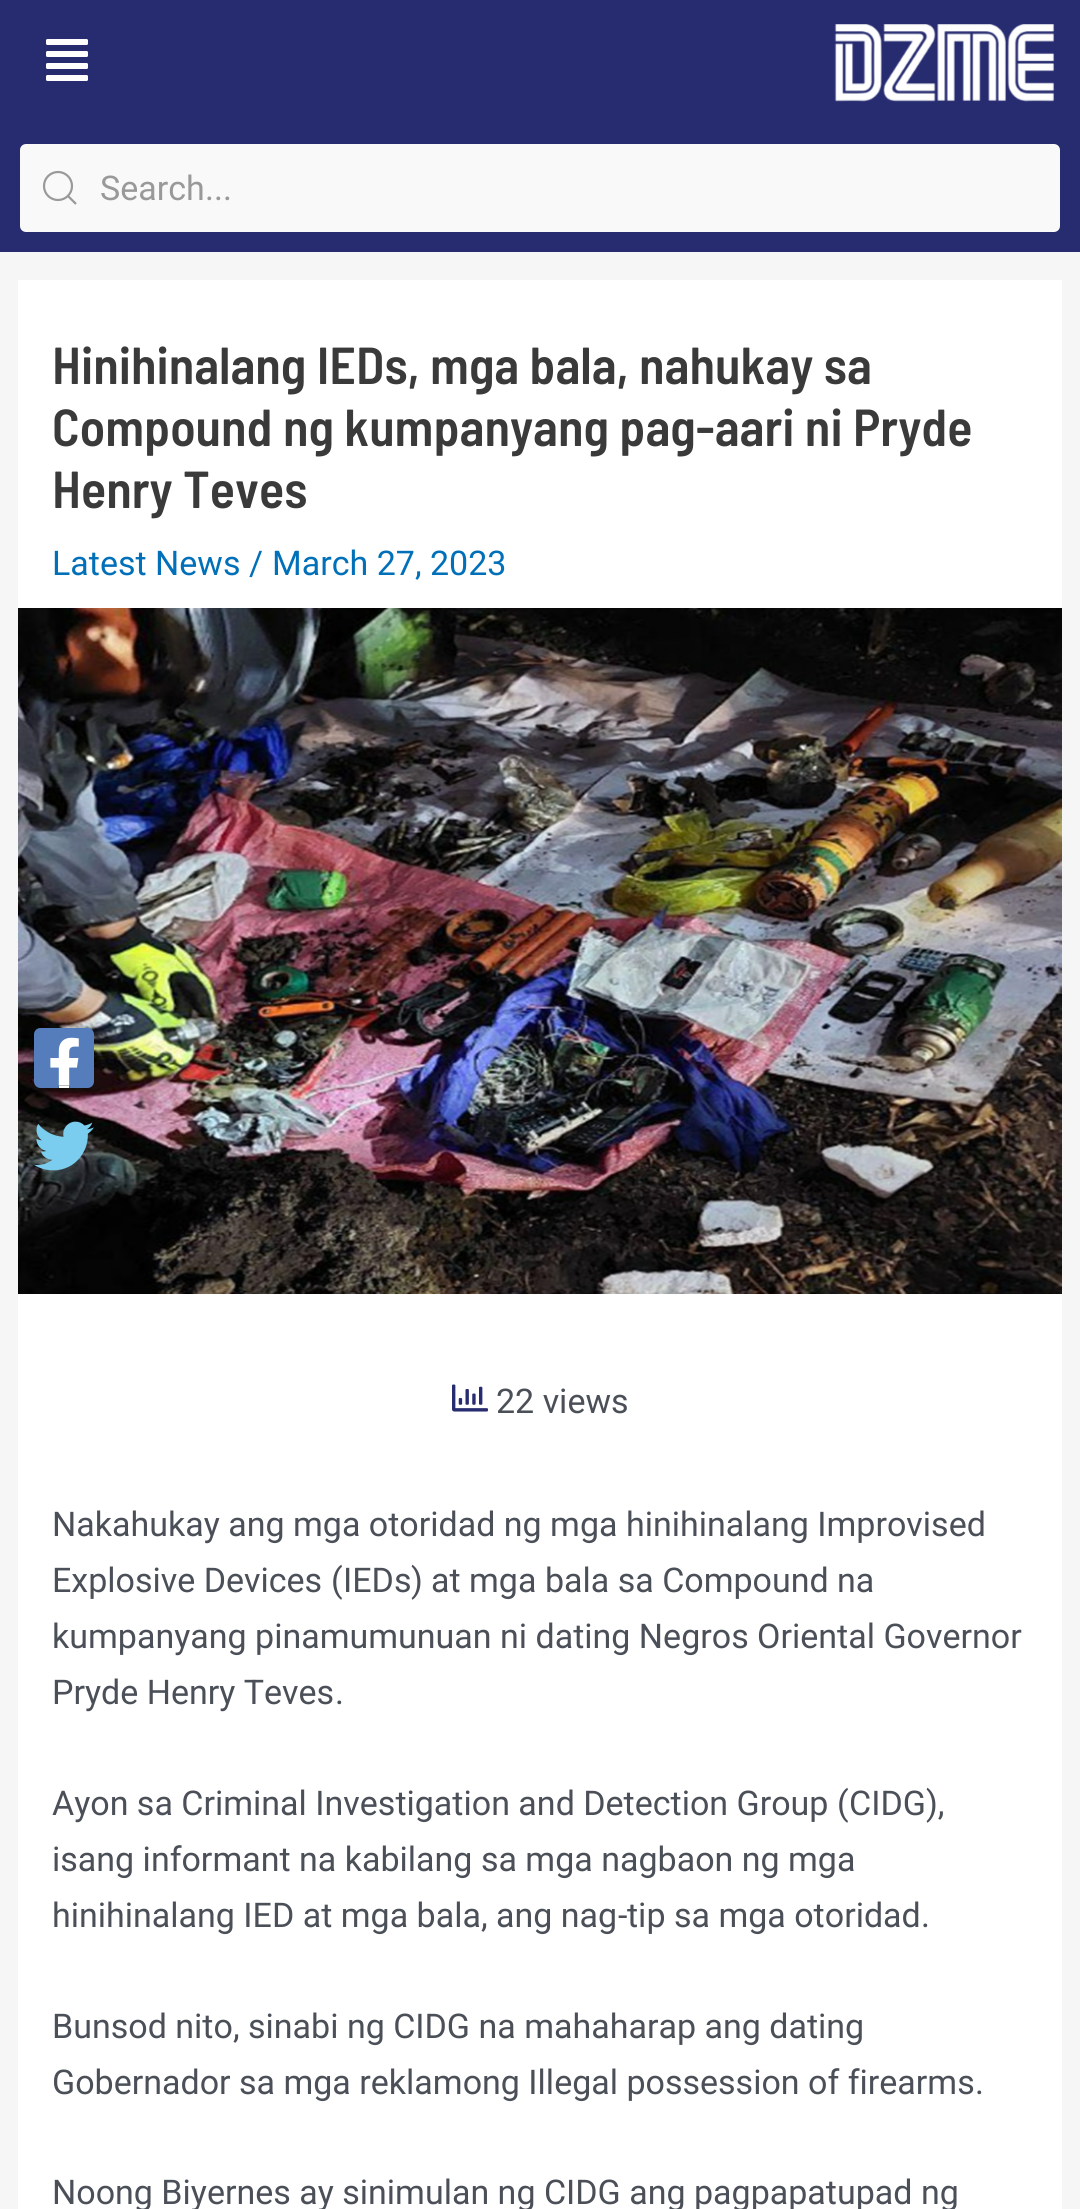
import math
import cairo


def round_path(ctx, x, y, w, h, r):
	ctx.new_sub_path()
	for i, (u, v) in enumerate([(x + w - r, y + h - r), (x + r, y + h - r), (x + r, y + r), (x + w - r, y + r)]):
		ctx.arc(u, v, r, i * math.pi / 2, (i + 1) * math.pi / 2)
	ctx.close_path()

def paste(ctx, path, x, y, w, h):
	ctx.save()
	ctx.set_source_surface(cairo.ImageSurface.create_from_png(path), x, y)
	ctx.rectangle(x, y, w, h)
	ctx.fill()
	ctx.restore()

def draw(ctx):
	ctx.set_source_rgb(0.961, 0.961, 0.961)
	ctx.paint()
	ctx.set_source_rgb(0.153, 0.173, 0.439)
	ctx.rectangle(0, 0, 1080, 252)
	ctx.fill()
	paste(ctx, 'media/1.png', 46, 39, 42, 42)
	paste(ctx, 'media/2.png', 834, 24, 221, 78)
	ctx.set_source_rgb(0.973, 0.973, 0.973)
	round_path(ctx, 20, 144, 1040, 88, 6)
	ctx.fill()
	ctx.arc(58, 186, 14, 0, 2 * math.pi)
	ctx.set_source_rgb(0.6, 0.6, 0.6)
	ctx.set_line_width(2.2)
	ctx.stroke()
	ctx.new_path()
	ctx.move_to(68, 196)
	ctx.line_to(76, 204)
	ctx.close_path()
	ctx.stroke()
	ctx.select_font_face('Roboto')
	ctx.set_font_size(34)
	ctx.move_to(100, 200)
	ctx.show_text('Search')
	ctx.select_font_face('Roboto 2')
	ctx.move_to(205, 200)
	ctx.show_text('...')
	ctx.set_source_rgb(1, 1, 1)
	ctx.rectangle(18, 280, 1044, 1929)
	ctx.fill()
	ctx.select_font_face('Barlow Semi Condensed SemiBold')
	ctx.set_font_size(52)
	ctx.set_source_rgb(0.227, 0.227, 0.227)
	for x, y, s in [
		(52, 384, 'Hinihinalang IEDs, mga bala, nahukay sa'),
		(52, 446, 'Compound ng kumpanyang pag-aari ni Pryde'),
		(52, 508, 'Henry Teves'),
	]:
		ctx.move_to(x, y)
		ctx.show_text(s)
	ctx.select_font_face('Roboto')
	ctx.set_font_size(34)
	ctx.set_source_rgb(0.004, 0.439, 0.725)
	ctx.move_to(52, 575)
	ctx.show_text('Latest News')
	ctx.select_font_face('Roboto 2')
	ctx.move_to(249, 575)
	ctx.show_text('/')
	ctx.select_font_face('Roboto')
	ctx.move_to(272, 575)
	ctx.show_text('March 27')
	ctx.select_font_face('Roboto 2')
	ctx.move_to(415, 575)
	ctx.show_text(',')
	ctx.select_font_face('Roboto')
	ctx.move_to(430, 575)
	ctx.show_text('2023')
	paste(ctx, 'media/3.png', 18, 608, 1044, 686)
	paste(ctx, 'media/4.png', 452, 1384, 36, 28)
	ctx.set_source_rgb(0.294, 0.31, 0.345)
	for x, y, s in [
		(496, 1413, '22 views'),
		(52, 1536, 'Nakahukay ang mga otoridad ng mga hinihinalang Improvised'),
		(52, 1592, 'Explosive Devices'),
	]:
		ctx.move_to(x, y)
		ctx.show_text(s)
	ctx.select_font_face('Roboto 2')
	ctx.move_to(331, 1592)
	ctx.show_text('(')
	ctx.select_font_face('Roboto')
	ctx.move_to(343, 1592)
	ctx.show_text('IEDs')
	ctx.select_font_face('Roboto 2')
	ctx.move_to(411, 1592)
	ctx.show_text(')')
	ctx.select_font_face('Roboto')
	for x, y, s in [
		(431, 1592, 'at mga bala sa Compound na'),
		(52, 1648, 'kumpanyang pinamumunuan ni dating Negros Oriental Governor'),
		(52, 1704, 'Pryde Henry Teves'),
	]:
		ctx.move_to(x, y)
		ctx.show_text(s)
	ctx.select_font_face('Roboto 2')
	ctx.move_to(335, 1704)
	ctx.show_text('.')
	ctx.select_font_face('Roboto')
	ctx.move_to(52, 1815)
	ctx.show_text('Ayon sa Criminal Investigation and Detection Group')
	ctx.select_font_face('Roboto 2')
	ctx.move_to(837, 1815)
	ctx.show_text('(')
	ctx.select_font_face('Roboto')
	ctx.move_to(849, 1815)
	ctx.show_text('CIDG')
	ctx.select_font_face('Roboto 2')
	ctx.move_to(926, 1815)
	ctx.show_text('),')
	ctx.select_font_face('Roboto')
	for x, y, s in [
		(52, 1871, 'isang informant na kabilang sa mga nagbaon ng mga'),
		(52, 1927, 'hinihinalang IED at mga bala'),
		(496, 1927, 'ang nag'),
	]:
		ctx.move_to(x, y)
		ctx.show_text(s)
	ctx.select_font_face('Roboto 2')
	ctx.move_to(618, 1927)
	ctx.show_text('-')
	ctx.select_font_face('Roboto')
	ctx.move_to(627, 1927)
	ctx.show_text('tip sa mga otoridad')
	ctx.select_font_face('Roboto 2')
	ctx.move_to(481, 1927)
	ctx.show_text(',')
	ctx.move_to(921, 1927)
	ctx.show_text('.')
	ctx.select_font_face('Roboto')
	ctx.move_to(52, 2038)
	ctx.show_text('Bunsod nito')
	ctx.select_font_face('Roboto 2')
	ctx.move_to(233, 2038)
	ctx.show_text(',')
	ctx.select_font_face('Roboto')
	ctx.move_to(248, 2038)
	ctx.show_text('sinabi ng CIDG na mahaharap ang dating')
	ctx.move_to(52, 2094)
	ctx.show_text('Gobernador sa mga reklamong Illegal possession of firearms')
	ctx.select_font_face('Roboto 2')
	ctx.move_to(975, 2094)
	ctx.show_text('.')
	ctx.select_font_face('Roboto')
	ctx.move_to(52, 2204)
	ctx.show_text('Noong Biyernes ay sinimulan ng CIDG ang pagpapatupad ng')
	paste(ctx, 'media/5.png', 34, 1028, 60, 60)
	paste(ctx, 'media/6.png', 34, 1121, 60, 50)


surface = cairo.ImageSurface(cairo.FORMAT_RGB24, 1080, 2209)
ctx = cairo.Context(surface)
options = cairo.FontOptions()
options.set_hint_metrics(cairo.HINT_METRICS_OFF)
options.set_hint_style(cairo.HINT_STYLE_NONE)
ctx.set_font_options(options)
ctx.set_miter_limit(4)
draw(ctx)
surface.write_to_png('image.png')
